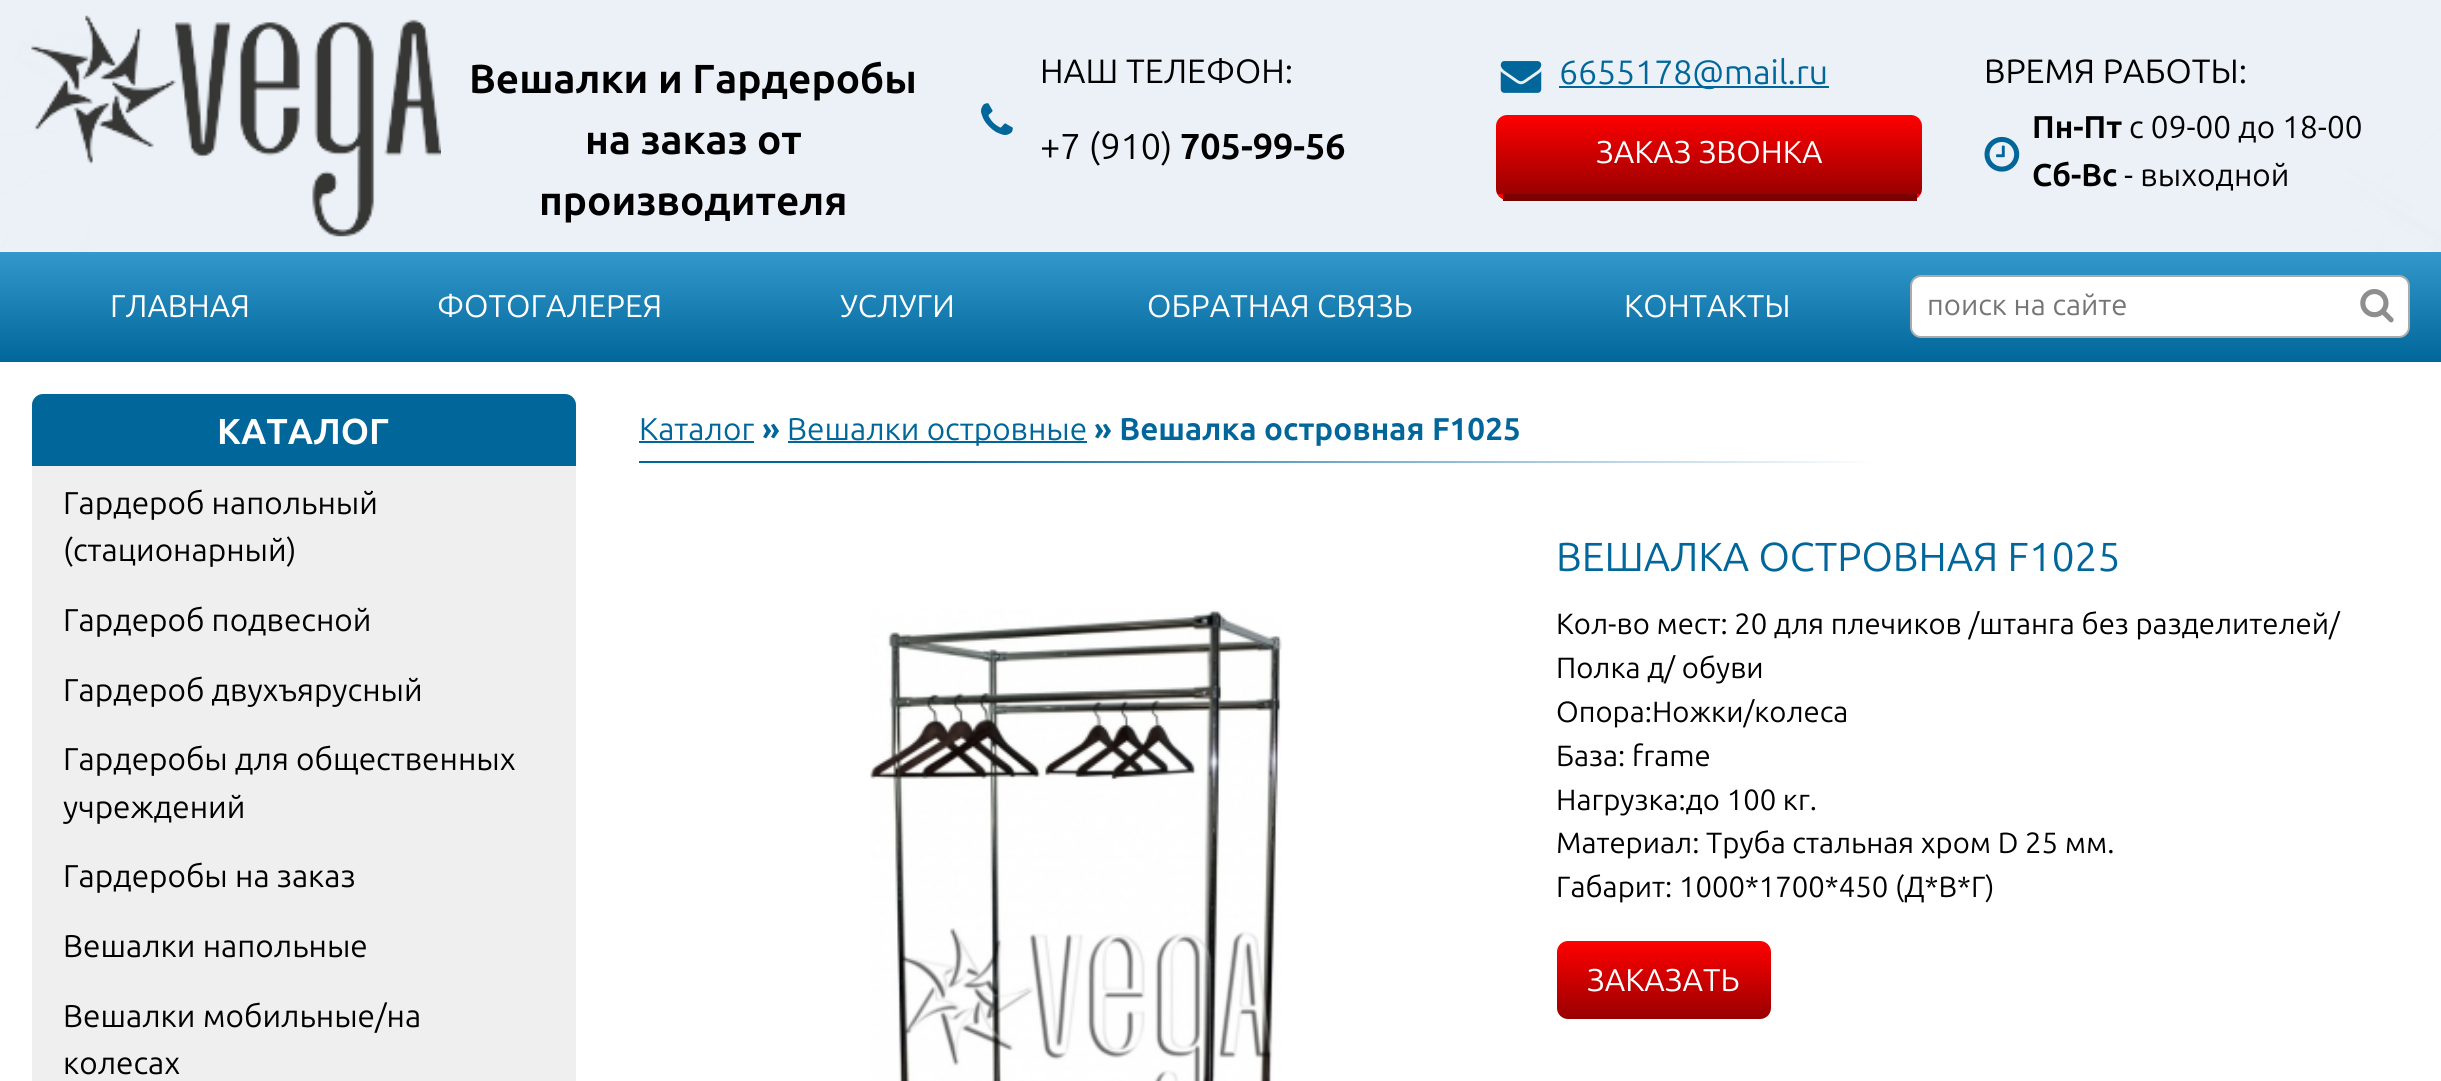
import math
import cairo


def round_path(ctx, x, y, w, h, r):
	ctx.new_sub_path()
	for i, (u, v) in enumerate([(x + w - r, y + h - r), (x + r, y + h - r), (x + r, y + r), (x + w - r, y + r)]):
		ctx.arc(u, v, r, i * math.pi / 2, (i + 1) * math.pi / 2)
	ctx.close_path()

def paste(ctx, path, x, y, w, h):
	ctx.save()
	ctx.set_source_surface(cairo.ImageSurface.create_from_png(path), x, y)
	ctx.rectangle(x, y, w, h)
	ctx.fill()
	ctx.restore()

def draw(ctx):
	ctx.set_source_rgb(0.91, 0.91, 0.91)
	ctx.paint()
	paste(ctx, 'media/1.png', 0, 27, 2441, 225)
	ctx.set_source_rgba(0.922, 0.949, 0.973, 0.9)
	ctx.rectangle(0, 0, 2441, 252)
	ctx.fill()
	paste(ctx, 'media/2.png', 31, 15, 410, 222)
	ctx.select_font_face('Ubuntu', cairo.FONT_SLANT_NORMAL, cairo.FONT_WEIGHT_BOLD)
	ctx.set_font_size(40.5)
	ctx.set_source_rgb(0, 0, 0)
	for x, y, s in [
		(469, 93, 'Вешалки и Гардеробы'),
		(585, 154, 'на заказ от'),
		(539, 215, 'производителя'),
	]:
		ctx.move_to(x, y)
		ctx.show_text(s)
	ctx.select_font_face('Ubuntu')
	ctx.set_font_size(33.75)
	ctx.move_to(1040, 83)
	ctx.show_text('НАШ ТЕЛЕФОН:')
	paste(ctx, 'media/3.png', 981, 103, 32, 32)
	ctx.set_font_size(36)
	ctx.move_to(1040, 159)
	ctx.show_text('+7 (910)')
	ctx.select_font_face('Ubuntu', cairo.FONT_SLANT_NORMAL, cairo.FONT_WEIGHT_BOLD)
	ctx.move_to(1180, 159)
	ctx.show_text('705-99-56')
	paste(ctx, 'media/4.png', 1500, 61, 42, 32)
	ctx.set_source_rgb(0.004, 0.4, 0.604)
	ctx.rectangle(1559, 86, 270, 2)
	ctx.fill()
	ctx.select_font_face('Ubuntu')
	ctx.set_font_size(33.75)
	ctx.move_to(1559, 84)
	ctx.show_text('6655178@mail.ru')
	ctx.save()
	round_path(ctx, 1496, 115, 426, 85, 11)
	ctx.clip()
	gradient = cairo.LinearGradient(1709, 194, 1709, 115)
	gradient.add_color_stop_rgba(0, 0.6, 0, 0, 1)
	gradient.add_color_stop_rgba(1, 1, 0, 0, 1)
	ctx.set_source(gradient)
	ctx.new_path()
	ctx.move_to(1507, 115)
	ctx.line_to(1911, 115)
	ctx.curve_to(1917, 115, 1922, 120, 1922, 126)
	ctx.line_to(1922, 194)
	ctx.line_to(1496, 194)
	ctx.line_to(1496, 126)
	ctx.curve_to(1496, 120, 1501, 115, 1507, 115)
	ctx.close_path()
	ctx.fill()
	gradient = cairo.LinearGradient(1709, 272, 1709, 194)
	gradient.add_color_stop_rgba(0, 0.6, 0, 0, 1)
	gradient.add_color_stop_rgba(1, 1, 0, 0, 1)
	ctx.set_source(gradient)
	ctx.rectangle(1496, 194, 426, 6)
	ctx.fill()
	ctx.restore()
	ctx.set_source_rgb(0.482, 0, 0)
	ctx.rectangle(1503, 194, 414, 7)
	ctx.fill()
	ctx.set_font_size(31.5)
	ctx.set_source_rgb(1, 1, 1)
	ctx.move_to(1596, 163)
	ctx.show_text('ЗАКАЗ ЗВОНКА')
	ctx.set_font_size(33.75)
	ctx.set_source_rgb(0, 0, 0)
	ctx.move_to(1984, 83)
	ctx.show_text('ВРЕМЯ РАБОТЫ:')
	ctx.select_font_face('Ubuntu', cairo.FONT_SLANT_NORMAL, cairo.FONT_WEIGHT_BOLD)
	ctx.set_font_size(31.5)
	ctx.move_to(2032, 138)
	ctx.show_text('Пн-Пт')
	ctx.select_font_face('Ubuntu')
	ctx.move_to(2129, 138)
	ctx.show_text('с 09-00 до 18-00')
	paste(ctx, 'media/5.png', 1984, 136, 36, 36)
	ctx.select_font_face('Ubuntu', cairo.FONT_SLANT_NORMAL, cairo.FONT_WEIGHT_BOLD)
	ctx.move_to(2032, 186)
	ctx.show_text('Сб-Вс')
	ctx.select_font_face('Ubuntu')
	ctx.move_to(2124, 186)
	ctx.show_text('- выходной')
	gradient = cairo.LinearGradient(1221, 362, 1221, 252)
	gradient.add_color_stop_rgba(0, 0.004, 0.4, 0.604, 1)
	gradient.add_color_stop_rgba(1, 0.2, 0.596, 0.8, 1)
	ctx.set_source(gradient)
	ctx.rectangle(0, 252, 2441, 110)
	ctx.fill()
	ctx.set_source_rgb(1, 1, 1)
	for x, y, s in [
		(110, 317, 'ГЛАВНАЯ'),
		(437, 317, 'ФОТОГАЛЕРЕЯ'),
		(840, 317, 'УСЛУГИ'),
		(1147, 317, 'ОБРАТНАЯ СВЯЗЬ'),
		(1624, 317, 'КОНТАКТЫ'),
	]:
		ctx.move_to(x, y)
		ctx.show_text(s)
	round_path(ctx, 1911, 276, 498, 61, 10)
	ctx.fill_preserve()
	ctx.set_source_rgb(0.667, 0.667, 0.667)
	ctx.stroke()
	ctx.set_font_size(29.25)
	ctx.set_source_rgb(0.459, 0.459, 0.459)
	ctx.move_to(1927, 315)
	ctx.show_text('поиск на сайте')
	paste(ctx, 'media/6.png', 2360, 289, 34, 34)
	ctx.set_source_rgb(1, 1, 1)
	ctx.rectangle(0, 362, 2441, 719)
	ctx.fill()
	ctx.set_source_rgb(0.937, 0.937, 0.937)
	round_path(ctx, 32, 394, 544, 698, 11)
	ctx.fill()
	ctx.set_source_rgb(0.004, 0.4, 0.604)
	ctx.new_path()
	ctx.move_to(43, 394)
	ctx.line_to(565, 394)
	ctx.curve_to(571, 394, 576, 399, 576, 405)
	ctx.line_to(576, 466)
	ctx.line_to(32, 466)
	ctx.line_to(32, 405)
	ctx.curve_to(32, 399, 37, 394, 43, 394)
	ctx.close_path()
	ctx.fill()
	ctx.select_font_face('Ubuntu', cairo.FONT_SLANT_NORMAL, cairo.FONT_WEIGHT_BOLD)
	ctx.set_font_size(36)
	ctx.set_source_rgb(1, 1, 1)
	ctx.move_to(217, 444)
	ctx.show_text('КАТАЛОГ')
	ctx.select_font_face('Ubuntu')
	ctx.set_font_size(31.5)
	ctx.set_source_rgb(0, 0, 0)
	for x, y, s in [
		(63, 514, 'Гардероб напольный'),
		(63, 561, '(стационарный)'),
		(63, 631, 'Гардероб подвесной'),
		(63, 701, 'Гардероб двухъярусный'),
		(63, 770, 'Гардеробы для общественных'),
		(63, 818, 'учреждений'),
		(63, 887, 'Гардеробы на заказ'),
		(63, 957, 'Вешалки напольные'),
		(63, 1027, 'Вешалки мобильные/на'),
		(63, 1074, 'колесах'),
	]:
		ctx.move_to(x, y)
		ctx.show_text(s)
	ctx.set_source_rgb(0.004, 0.4, 0.604)
	ctx.move_to(639, 440)
	ctx.show_text('Каталог')
	ctx.rectangle(639, 441, 115, 2)
	ctx.fill()
	ctx.select_font_face('Ubuntu', cairo.FONT_SLANT_NORMAL, cairo.FONT_WEIGHT_BOLD)
	ctx.move_to(762, 440)
	ctx.show_text('»')
	ctx.rectangle(788, 441, 299, 2)
	ctx.fill()
	ctx.select_font_face('Ubuntu')
	ctx.move_to(787, 440)
	ctx.show_text('Вешалки островные')
	ctx.select_font_face('Ubuntu', cairo.FONT_SLANT_NORMAL, cairo.FONT_WEIGHT_BOLD)
	ctx.move_to(1094, 440)
	ctx.show_text('» Вешалка островная F1025')
	gradient = cairo.LinearGradient(639, 462, 2410, 462)
	gradient.add_color_stop_rgba(0, 0.004, 0.4, 0.604, 1)
	gradient.add_color_stop_rgba(0.15, 0.004, 0.4, 0.604, 1)
	gradient.add_color_stop_rgba(0.7, 1, 1, 1, 1)
	ctx.set_source(gradient)
	ctx.rectangle(639, 461, 1230, 2)
	ctx.fill()
	paste(ctx, 'media/7.png', 869, 609, 413, 472)
	ctx.select_font_face('Ubuntu')
	ctx.set_font_size(40.5)
	ctx.set_source_rgb(0.004, 0.4, 0.604)
	ctx.move_to(1556, 571)
	ctx.show_text('ВЕШАЛКА ОСТРОВНАЯ F1025')
	ctx.set_font_size(29.25)
	ctx.set_source_rgb(0, 0, 0)
	for x, y, s in [
		(1556, 634, 'Кол-во мест: 20 для плечиков /штанга без разделителей/'),
		(1556, 678, 'Полка д/ обуви'),
		(1556, 722, 'Опора:Ножки/колеса'),
		(1556, 766, 'База: frame'),
		(1556, 810, 'Нагрузка:до 100 кг.'),
		(1556, 853, 'Материал: Труба стальная хром D 25 мм.'),
		(1556, 897, 'Габарит: 1000*1700*450 (Д*В*Г)'),
	]:
		ctx.move_to(x, y)
		ctx.show_text(s)
	gradient = cairo.LinearGradient(1664, 1019, 1664, 941)
	gradient.add_color_stop_rgba(0, 0.6, 0, 0, 1)
	gradient.add_color_stop_rgba(1, 1, 0, 0, 1)
	ctx.set_source(gradient)
	round_path(ctx, 1557, 941, 214, 78, 11)
	ctx.fill()
	ctx.set_font_size(31.5)
	ctx.set_source_rgb(1, 1, 1)
	ctx.move_to(1587, 991)
	ctx.show_text('ЗАКАЗАТЬ')


surface = cairo.ImageSurface(cairo.FORMAT_RGB24, 2441, 1081)
ctx = cairo.Context(surface)
options = cairo.FontOptions()
options.set_hint_metrics(cairo.HINT_METRICS_OFF)
options.set_hint_style(cairo.HINT_STYLE_NONE)
ctx.set_font_options(options)
ctx.set_miter_limit(4)
draw(ctx)
surface.write_to_png('image.png')
